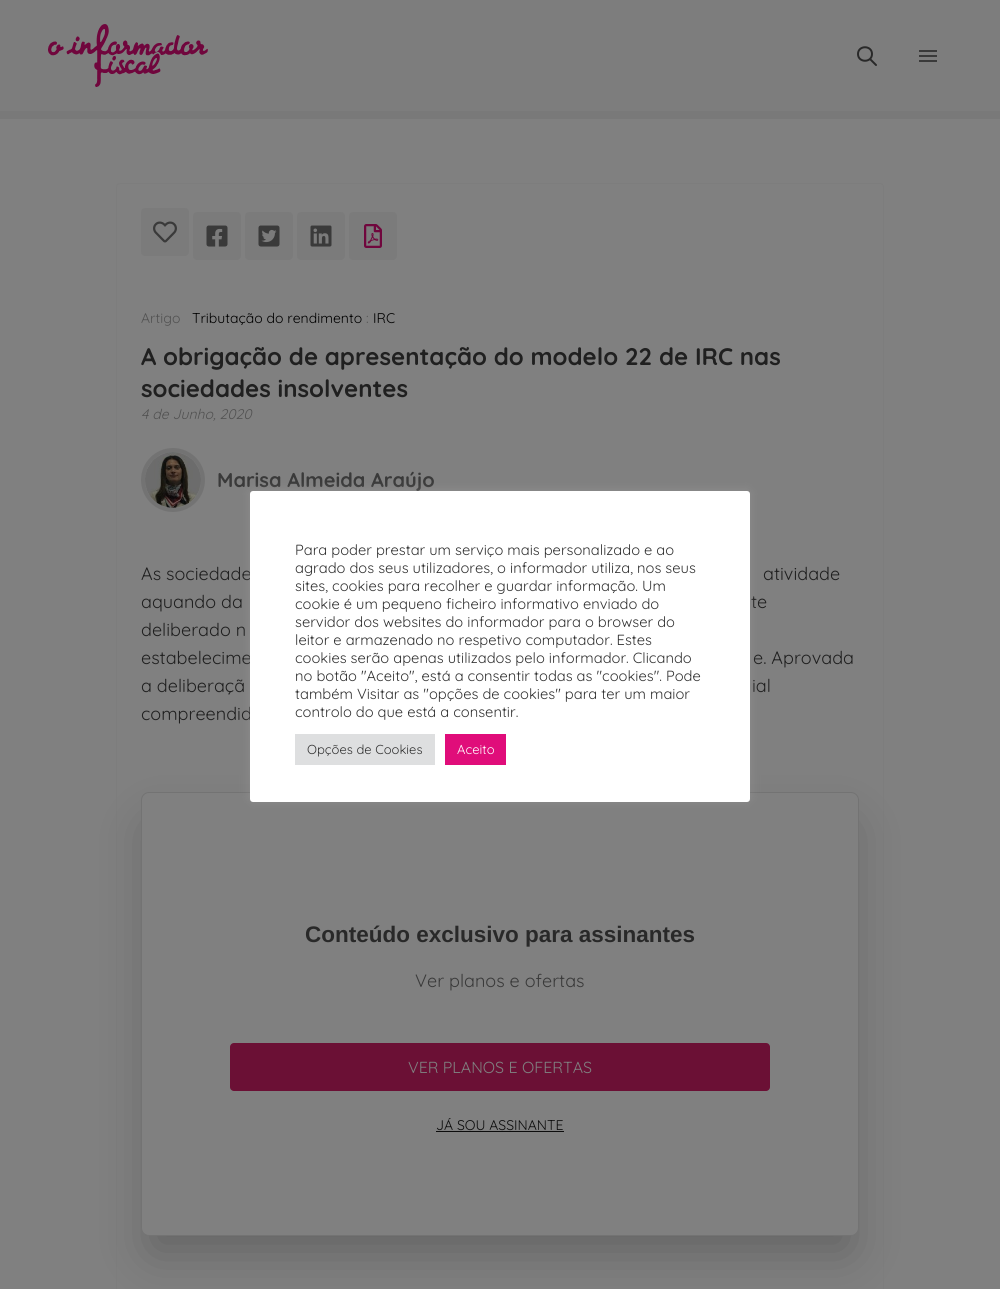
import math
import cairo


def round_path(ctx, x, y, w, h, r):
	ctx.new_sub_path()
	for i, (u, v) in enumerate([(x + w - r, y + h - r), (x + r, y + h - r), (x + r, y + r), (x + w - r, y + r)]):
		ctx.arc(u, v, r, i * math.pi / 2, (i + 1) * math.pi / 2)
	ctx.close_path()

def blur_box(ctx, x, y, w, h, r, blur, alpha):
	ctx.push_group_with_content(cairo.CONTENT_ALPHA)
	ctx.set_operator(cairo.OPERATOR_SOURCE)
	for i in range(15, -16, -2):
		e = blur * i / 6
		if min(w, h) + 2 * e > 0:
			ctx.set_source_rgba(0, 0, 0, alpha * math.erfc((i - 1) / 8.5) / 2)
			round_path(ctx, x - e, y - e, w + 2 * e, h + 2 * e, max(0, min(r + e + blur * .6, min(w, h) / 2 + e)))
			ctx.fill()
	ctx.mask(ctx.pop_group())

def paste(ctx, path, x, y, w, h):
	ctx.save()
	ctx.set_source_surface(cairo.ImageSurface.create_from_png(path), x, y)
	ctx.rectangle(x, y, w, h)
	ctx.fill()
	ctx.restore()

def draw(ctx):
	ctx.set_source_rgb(0.502, 0.502, 0.502)
	ctx.paint()
	ctx.set_source_rgb(0.475, 0.475, 0.475)
	ctx.rectangle(0, 111, 1000, 8)
	ctx.fill()
	ctx.set_source_rgb(0.49, 0.49, 0.49)
	ctx.rectangle(0, 0, 1000, 111)
	ctx.fill()
	paste(ctx, 'media/1.png', 48, 24, 160, 63)
	ctx.new_path()
	ctx.move_to(876, 65)
	ctx.line_to(870, 59)
	ctx.move_to(872, 54)
	ctx.curve_to(872, 63, 858, 63, 858, 54)
	ctx.curve_to(858, 45, 872, 45, 872, 54)
	ctx.close_path()
	ctx.set_source_rgb(0.161, 0.161, 0.161)
	ctx.set_line_cap(cairo.LINE_CAP_ROUND)
	ctx.set_line_join(cairo.LINE_JOIN_ROUND)
	ctx.stroke()
	paste(ctx, 'media/2.png', 919, 50, 18, 12)
	round_path(ctx, 116.5, 183.5, 767, 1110, 3.5)
	ctx.set_source_rgb(0.49, 0.49, 0.49)
	ctx.set_line_width(1)
	ctx.set_line_cap(cairo.LINE_CAP_BUTT)
	ctx.set_line_join(cairo.LINE_JOIN_MITER)
	ctx.stroke()
	ctx.set_source_rgb(0.482, 0.482, 0.482)
	round_path(ctx, 141, 208, 48, 48, 4)
	ctx.fill()
	paste(ctx, 'media/3.png', 153, 221, 24, 22)
	round_path(ctx, 193, 212, 48, 48, 4)
	ctx.fill()
	paste(ctx, 'media/4.png', 206, 225, 22, 22)
	round_path(ctx, 245, 212, 48, 48, 4)
	ctx.fill()
	paste(ctx, 'media/5.png', 258, 225, 22, 22)
	round_path(ctx, 297, 212, 48, 48, 4)
	ctx.fill()
	paste(ctx, 'media/6.png', 310, 225, 22, 22)
	round_path(ctx, 349, 212, 48, 48, 4)
	ctx.fill()
	paste(ctx, 'media/7.png', 364, 224, 18, 24)
	ctx.select_font_face('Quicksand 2 Light')
	ctx.set_font_size(14)
	ctx.set_source_rgb(0.322, 0.322, 0.322)
	ctx.move_to(141, 323)
	ctx.show_text('Artigo')
	ctx.set_source_rgb(0, 0, 0)
	ctx.move_to(192, 323)
	ctx.show_text('Tributação do rendimento')
	ctx.set_source_rgb(0.322, 0.322, 0.322)
	ctx.move_to(366, 323)
	ctx.show_text(':')
	ctx.set_source_rgb(0, 0, 0)
	ctx.move_to(373, 323)
	ctx.show_text('IRC')
	ctx.select_font_face('Quicksand Light')
	ctx.set_font_size(24)
	ctx.set_source_rgb(0.125, 0.125, 0.125)
	ctx.move_to(141, 365)
	ctx.show_text('A obrigação de apresentação do modelo 22 de IRC nas')
	ctx.move_to(141, 397)
	ctx.show_text('sociedades insolventes')
	ctx.select_font_face('Quicksand Light', cairo.FONT_SLANT_ITALIC)
	ctx.set_font_size(14)
	ctx.set_source_rgb(0.322, 0.322, 0.322)
	ctx.move_to(141, 419)
	ctx.show_text('4 de Junho, 2020')
	ctx.new_path()
	ctx.arc(173, 480, 30, 0, 2 * math.pi)
	ctx.set_source_rgb(0.451, 0.451, 0.451)
	ctx.set_line_width(4)
	ctx.stroke()
	paste(ctx, 'media/8.png', 145, 452, 56, 56)
	ctx.select_font_face('Quicksand Light')
	ctx.set_font_size(20)
	ctx.set_source_rgb(0.227, 0.227, 0.227)
	ctx.move_to(217, 487)
	ctx.show_text('Marisa Almeida Araújo')
	ctx.select_font_face('Quicksand 2 Light')
	ctx.set_font_size(18)
	ctx.set_source_rgb(0.125, 0.125, 0.125)
	for x, y, s in [
		(141, 580, 'As sociedade'),
		(763, 580, 'atividade'),
		(141, 608, 'aquando da'),
		(751, 608, 'te'),
		(141, 636, 'deliberado n'),
		(141, 664, 'estabelecime'),
		(753, 664, 'e. Aprovada'),
		(141, 692, 'a deliberaçã'),
		(752, 692, 'ial'),
		(141, 720, 'compreendid'),
	]:
		ctx.move_to(x, y)
		ctx.show_text(s)
	ctx.set_source_rgb(0, 0, 0)
	blur_box(ctx, 153, 829, 694, 420, 0, 25, 0.25)
	ctx.set_source_rgb(0.502, 0.502, 0.502)
	round_path(ctx, 141.5, 792.5, 717, 443, 7.5)
	ctx.fill_preserve()
	ctx.set_source_rgb(0.451, 0.451, 0.451)
	ctx.set_line_width(1)
	ctx.stroke()
	ctx.select_font_face('Liberation Sans', cairo.FONT_SLANT_NORMAL, cairo.FONT_WEIGHT_BOLD)
	ctx.set_font_size(22.5)
	ctx.set_source_rgb(0.161, 0.161, 0.161)
	ctx.move_to(305, 942)
	ctx.show_text('Conteúdo exclusivo para assinantes')
	ctx.select_font_face('Quicksand 2 Light')
	ctx.set_font_size(18)
	ctx.set_source_rgb(0.227, 0.227, 0.227)
	ctx.move_to(415, 987)
	ctx.show_text('Ver planos e ofertas')
	ctx.set_source_rgb(0.42, 0.063, 0.208)
	round_path(ctx, 230, 1043, 540, 48, 4)
	ctx.fill()
	ctx.set_font_size(16)
	ctx.set_source_rgb(0.502, 0.502, 0.502)
	ctx.move_to(408, 1073)
	ctx.show_text('VER PLANOS E OFERTAS')
	ctx.set_font_size(14)
	ctx.set_source_rgb(0.047, 0.047, 0.047)
	ctx.move_to(436, 1130)
	ctx.show_text('JÁ SOU ASSINANTE')
	ctx.rectangle(436, 1131, 128, 1)
	ctx.fill()
	ctx.set_source_rgb(0.675, 0.671, 0.671)
	blur_box(ctx, 250, 490, 500, 311, 3, 5, 0.3)
	ctx.set_source_rgb(1, 1, 1)
	round_path(ctx, 250, 491, 500, 311, 3)
	ctx.fill()
	ctx.set_font_size(14.7)
	ctx.set_source_rgb(0.2, 0.2, 0.2)
	for x, y, s in [
		(295, 555, 'Para poder prestar um serviço mais personalizado e ao'),
		(295, 573, 'agrado dos seus utilizadores, o informador utiliza, nos seus'),
		(295, 591, 'sites, cookies para recolher e guardar informação. Um'),
		(295, 609, 'cookie é um pequeno ficheiro informativo enviado do'),
		(295, 627, 'servidor dos websites do informador para o browser do'),
		(295, 645, 'leitor e armazenado no respetivo computador. Estes'),
		(295, 663, 'cookies serão apenas utilizados pelo informador. Clicando'),
		(295, 681, 'no botão "Aceito", está a consentir todas as "cookies". Pode'),
		(295, 699, 'também Visitar as "opções de cookies" para ter um maior'),
		(295, 717, 'controlo do que está a consentir.'),
	]:
		ctx.move_to(x, y)
		ctx.show_text(s)
	ctx.set_source_rgb(0.871, 0.875, 0.878)
	ctx.rectangle(295, 734, 140, 31)
	ctx.fill()
	ctx.set_font_size(13)
	ctx.set_source_rgb(0.2, 0.2, 0.2)
	ctx.move_to(307, 754)
	ctx.show_text('Opções de Cookies')
	ctx.set_source_rgb(0.878, 0.051, 0.478)
	ctx.rectangle(445, 734, 61, 31)
	ctx.fill()
	ctx.set_source_rgb(1, 1, 1)
	ctx.move_to(457, 754)
	ctx.show_text('Aceito')


surface = cairo.ImageSurface(cairo.FORMAT_RGB24, 1000, 1289)
ctx = cairo.Context(surface)
options = cairo.FontOptions()
options.set_hint_metrics(cairo.HINT_METRICS_OFF)
options.set_hint_style(cairo.HINT_STYLE_NONE)
ctx.set_font_options(options)
ctx.set_miter_limit(4)
draw(ctx)
surface.write_to_png('image.png')
